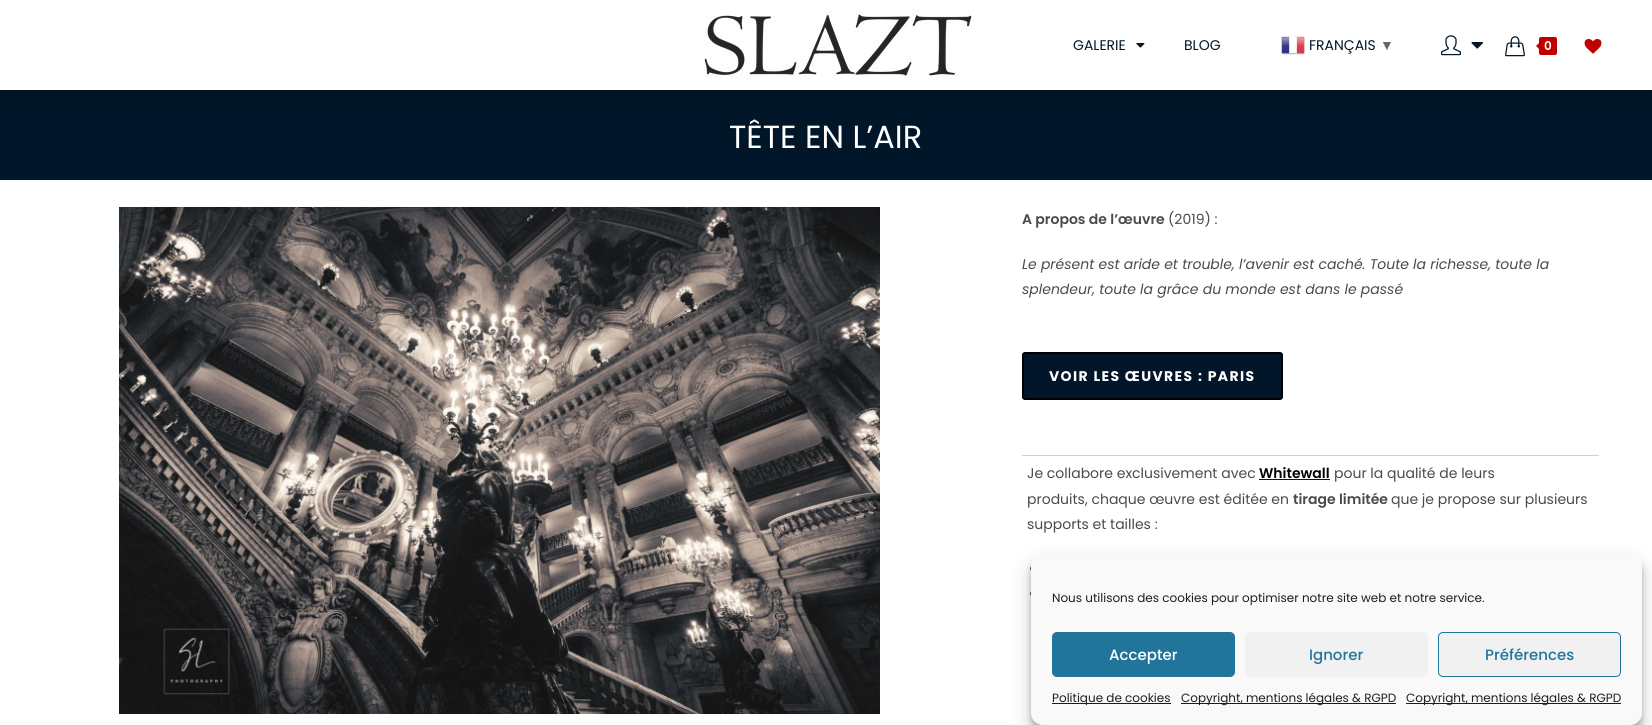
import math
import cairo


def write_spaced(ctx, x, y, s, letter, word):
	ctx.move_to(x, y)
	for ch in s:
		ctx.show_text(ch)
		ctx.rel_move_to(letter + word * (ch == ' '), 0)

def round_path(ctx, x, y, w, h, r):
	ctx.new_sub_path()
	for i, (u, v) in enumerate([(x + w - r, y + h - r), (x + r, y + h - r), (x + r, y + r), (x + w - r, y + r)]):
		ctx.arc(u, v, r, i * math.pi / 2, (i + 1) * math.pi / 2)
	ctx.close_path()

def blur_box(ctx, x, y, w, h, r, blur, alpha):
	ctx.push_group_with_content(cairo.CONTENT_ALPHA)
	ctx.set_operator(cairo.OPERATOR_SOURCE)
	for i in range(15, -16, -2):
		e = blur * i / 6
		if min(w, h) + 2 * e > 0:
			ctx.set_source_rgba(0, 0, 0, alpha * math.erfc((i - 1) / 8.5) / 2)
			round_path(ctx, x - e, y - e, w + 2 * e, h + 2 * e, max(0, min(r + e + blur * .6, min(w, h) / 2 + e)))
			ctx.fill()
	ctx.mask(ctx.pop_group())

def paste(ctx, path, x, y, w, h):
	ctx.save()
	ctx.set_source_surface(cairo.ImageSurface.create_from_png(path), x, y)
	ctx.rectangle(x, y, w, h)
	ctx.fill()
	ctx.restore()

def draw(ctx):
	ctx.set_source_rgb(1, 1, 1)
	ctx.paint()
	ctx.set_source_rgb(0.004, 0.086, 0.157)
	ctx.rectangle(0, 90, 1652, 90)
	ctx.fill()
	ctx.set_source_rgb(0, 0, 0)
	blur_box(ctx, 0, 0, 1652, 90, 0, 5, 0.5)
	ctx.set_source_rgb(1, 1, 1)
	ctx.rectangle(0, 0, 1652, 90)
	ctx.fill()
	paste(ctx, 'media/1.png', 704, 9, 271, 71)
	ctx.select_font_face('Poppins')
	ctx.set_font_size(14)
	ctx.set_source_rgb(0.004, 0.086, 0.157)
	ctx.move_to(1073, 50)
	ctx.show_text('GALERIE')
	paste(ctx, 'media/2.png', 1136, 43, 9, 5)
	ctx.move_to(1184, 50)
	ctx.show_text('BLOG')
	paste(ctx, 'media/3.png', 1281, 36, 24, 19)
	ctx.move_to(1309, 50)
	ctx.show_text('FRANÇAIS')
	ctx.select_font_face('Liberation Serif')
	ctx.set_source_rgb(0.4, 0.4, 0.4)
	ctx.move_to(1380, 50)
	ctx.show_text('▼')
	paste(ctx, 'media/4.png', 1441, 35, 20, 21)
	paste(ctx, 'media/5.png', 1471, 42, 12, 7)
	paste(ctx, 'media/6.png', 1505, 36, 20, 21)
	ctx.set_source_rgb(0.753, 0, 0)
	round_path(ctx, 1539, 37, 18, 18, 2)
	ctx.fill()
	ctx.new_path()
	ctx.move_to(1541, 41)
	ctx.line_to(1541, 51)
	ctx.line_to(1536, 46)
	ctx.close_path()
	ctx.fill()
	ctx.select_font_face('Poppins SemiBold')
	ctx.set_font_size(12)
	ctx.set_source_rgb(1, 1, 1)
	ctx.move_to(1544, 50)
	ctx.show_text('0')
	paste(ctx, 'media/7.png', 1584, 39, 18, 15)
	ctx.select_font_face('Poppins')
	ctx.set_font_size(32)
	ctx.move_to(729, 148)
	ctx.show_text('TÊTE EN L’AIR')
	paste(ctx, 'media/8.png', 119, 207, 761, 507)
	ctx.select_font_face('Poppins SemiBold')
	ctx.set_font_size(14)
	ctx.set_source_rgb(0.29, 0.29, 0.29)
	ctx.move_to(1022, 224)
	ctx.show_text('A propos de l’œuvre')
	ctx.select_font_face('Poppins')
	ctx.move_to(1168, 224)
	ctx.show_text('(2019) :')
	ctx.select_font_face('Poppins', cairo.FONT_SLANT_ITALIC)
	ctx.move_to(1022, 269)
	ctx.show_text('Le présent est aride et trouble, l’avenir est caché. Toute la richesse, toute la')
	ctx.move_to(1022, 294)
	ctx.show_text('splendeur, toute la grâce du monde est dans le passé')
	ctx.set_source_rgb(0.004, 0.086, 0.157)
	round_path(ctx, 1023, 353, 259, 46, 2)
	ctx.fill_preserve()
	ctx.set_source_rgb(0, 0, 0)
	ctx.stroke()
	ctx.select_font_face('Poppins', cairo.FONT_SLANT_NORMAL, cairo.FONT_WEIGHT_BOLD)
	ctx.set_source_rgb(1, 1, 1)
	write_spaced(ctx, 1049, 381, 'VOIR LES ŒUVRES : PARIS', 1.4, 0)
	ctx.set_source_rgb(0.812, 0.812, 0.839)
	ctx.rectangle(1022, 455, 577, 1)
	ctx.fill()
	ctx.select_font_face('Poppins')
	ctx.set_source_rgb(0.29, 0.29, 0.29)
	ctx.move_to(1027, 478)
	ctx.show_text('Je collabore exclusivement avec')
	ctx.select_font_face('Poppins SemiBold')
	ctx.set_source_rgb(0, 0, 0)
	ctx.move_to(1259, 478)
	ctx.show_text('Whitewall')
	ctx.set_source_rgb(0.004, 0.086, 0.157)
	ctx.rectangle(1259, 479, 71, 1)
	ctx.fill()
	ctx.select_font_face('Poppins')
	ctx.set_source_rgb(0.29, 0.29, 0.29)
	ctx.move_to(1334, 478)
	ctx.show_text('pour la qualité de leurs')
	ctx.move_to(1027, 504)
	ctx.show_text('produits, chaque œuvre est éditée en')
	ctx.select_font_face('Poppins SemiBold')
	ctx.move_to(1293, 504)
	ctx.show_text('tirage limitée')
	ctx.select_font_face('Poppins')
	ctx.move_to(1391, 504)
	ctx.show_text('que je propose sur plusieurs')
	ctx.move_to(1027, 529)
	ctx.show_text('supports et tailles :')
	ctx.new_path()
	ctx.arc(1032.5, 568.5, 2.5, 0, 2 * math.pi)
	ctx.fill()
	ctx.arc(1032.5, 593.5, 2.5, 0, 2 * math.pi)
	ctx.fill()
	ctx.set_source_rgb(0, 0, 0)
	blur_box(ctx, 1031, 559, 611, 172, 12, 3, 0.23)
	blur_box(ctx, 1031, 563, 611, 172, 12, 10, 0.19)
	ctx.set_source_rgb(0.976, 0.976, 0.976)
	round_path(ctx, 1031.5, 553.5, 610, 171, 11.5)
	ctx.fill_preserve()
	ctx.set_line_width(1)
	ctx.stroke()
	ctx.set_font_size(12)
	ctx.set_source_rgb(0.098, 0.118, 0.137)
	ctx.move_to(1052, 602)
	ctx.show_text('Nous utilisons des cookies pour optimiser notre site web et notre service.')
	ctx.set_source_rgb(0.129, 0.459, 0.608)
	round_path(ctx, 1052.5, 632.5, 182, 44, 4.5)
	ctx.fill_preserve()
	ctx.stroke()
	ctx.select_font_face('Poppins Medium')
	ctx.set_font_size(15)
	ctx.set_source_rgb(1, 1, 1)
	ctx.move_to(1109, 660)
	ctx.show_text('Accepter')
	ctx.set_source_rgb(0.945, 0.945, 0.945)
	round_path(ctx, 1245, 632, 183, 45, 5)
	ctx.fill()
	ctx.set_source_rgb(0.129, 0.459, 0.608)
	ctx.move_to(1309, 660)
	ctx.show_text('Ignorer')
	ctx.set_source_rgb(0.945, 0.945, 0.945)
	round_path(ctx, 1438.5, 632.5, 182, 44, 4.5)
	ctx.fill_preserve()
	ctx.set_source_rgb(0.129, 0.459, 0.608)
	ctx.stroke()
	ctx.move_to(1485, 660)
	ctx.show_text('Préférences')
	ctx.set_source_rgb(0.098, 0.118, 0.137)
	ctx.rectangle(1052, 703, 119, 1)
	ctx.fill()
	ctx.select_font_face('Poppins')
	ctx.set_font_size(12)
	ctx.move_to(1052, 702)
	ctx.show_text('Politique de cookies')
	ctx.rectangle(1181, 703, 215, 1)
	ctx.fill()
	ctx.move_to(1181, 702)
	ctx.show_text('Copyright, mentions légales & RGPD')
	ctx.rectangle(1406, 703, 215, 1)
	ctx.fill()
	ctx.move_to(1406, 702)
	ctx.show_text('Copyright, mentions légales & RGPD')


surface = cairo.ImageSurface(cairo.FORMAT_RGB24, 1652, 725)
ctx = cairo.Context(surface)
options = cairo.FontOptions()
options.set_hint_metrics(cairo.HINT_METRICS_OFF)
options.set_hint_style(cairo.HINT_STYLE_NONE)
ctx.set_font_options(options)
ctx.set_miter_limit(4)
draw(ctx)
surface.write_to_png('image.png')
